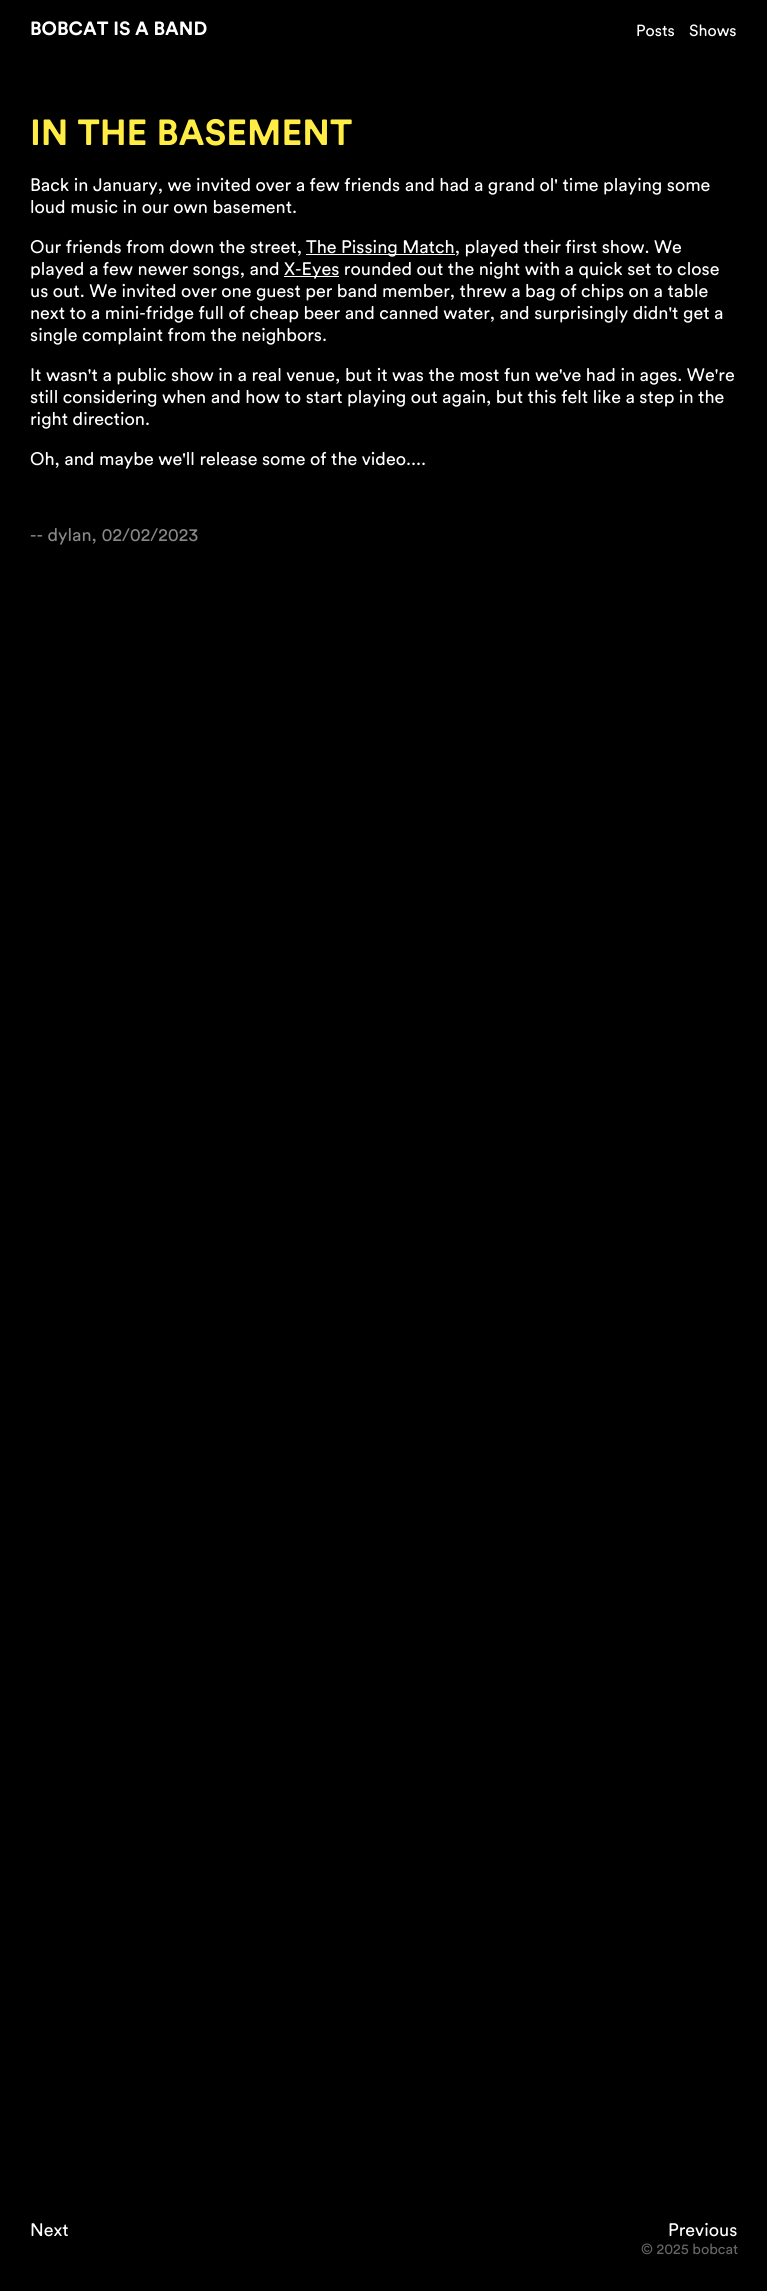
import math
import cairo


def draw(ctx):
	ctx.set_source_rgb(0, 0, 0)
	ctx.paint()
	ctx.select_font_face('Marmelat', cairo.FONT_SLANT_NORMAL, cairo.FONT_WEIGHT_BOLD)
	ctx.set_font_size(19)
	ctx.set_source_rgb(1, 1, 1)
	ctx.move_to(30, 35)
	ctx.show_text('BOBCAT IS A BAND')
	ctx.select_font_face('Marmelat')
	ctx.set_font_size(16)
	ctx.move_to(636, 36)
	ctx.show_text('Posts')
	ctx.move_to(689, 36)
	ctx.show_text('Shows')
	ctx.select_font_face('Marmelat', cairo.FONT_SLANT_NORMAL, cairo.FONT_WEIGHT_BOLD)
	ctx.set_font_size(36)
	ctx.set_source_rgb(1, 0.925, 0.271)
	ctx.move_to(30, 145)
	ctx.show_text('IN THE BASEMENT')
	ctx.select_font_face('Marmelat')
	ctx.set_font_size(18)
	ctx.set_source_rgb(1, 1, 1)
	for x, y, s in [
		(30, 191, 'Back in January, we invited over a few friends and had a grand ol\' time playing some'),
		(30, 213, 'loud music in our own basement.'),
		(30, 253, 'Our friends from down the street,'),
	]:
		ctx.move_to(x, y)
		ctx.show_text(s)
	ctx.rectangle(306, 254, 149, 1)
	ctx.fill()
	ctx.move_to(306, 253)
	ctx.show_text('The Pissing Match, played their first show. We')
	ctx.move_to(30, 275)
	ctx.show_text('played a few newer songs, and')
	ctx.rectangle(284, 276, 55, 1)
	ctx.fill()
	for x, y, s in [
		(284, 275, 'X-Eyes rounded out the night with a quick set to close'),
		(30, 297, 'us out. We invited over one guest per band member, threw a bag of chips on a table'),
		(30, 319, 'next to a mini-fridge full of cheap beer and canned water, and surprisingly didn\'t get a'),
		(30, 341, 'single complaint from the neighbors.'),
		(30, 381, 'It wasn\'t a public show in a real venue, but it was the most fun we\'ve had in ages. We\'re'),
		(30, 403, 'still considering when and how to start playing out again, but this felt like a step in the'),
		(30, 425, 'right direction.'),
		(30, 465, 'Oh, and maybe we\'ll release some of the video....'),
	]:
		ctx.move_to(x, y)
		ctx.show_text(s)
	ctx.set_source_rgb(0.533, 0.533, 0.533)
	ctx.move_to(30, 541)
	ctx.show_text('-- dylan, 02/02/2023')
	ctx.set_source_rgb(1, 1, 1)
	ctx.move_to(30, 2236)
	ctx.show_text('Next')
	ctx.move_to(668, 2236)
	ctx.show_text('Previous')
	ctx.set_font_size(14.5)
	ctx.set_source_rgb(0.4, 0.4, 0.4)
	ctx.move_to(641, 2254)
	ctx.show_text('© 2025 bobcat')


surface = cairo.ImageSurface(cairo.FORMAT_RGB24, 767, 2291)
ctx = cairo.Context(surface)
options = cairo.FontOptions()
options.set_hint_metrics(cairo.HINT_METRICS_OFF)
options.set_hint_style(cairo.HINT_STYLE_NONE)
ctx.set_font_options(options)
ctx.set_miter_limit(4)
draw(ctx)
surface.write_to_png('image.png')
